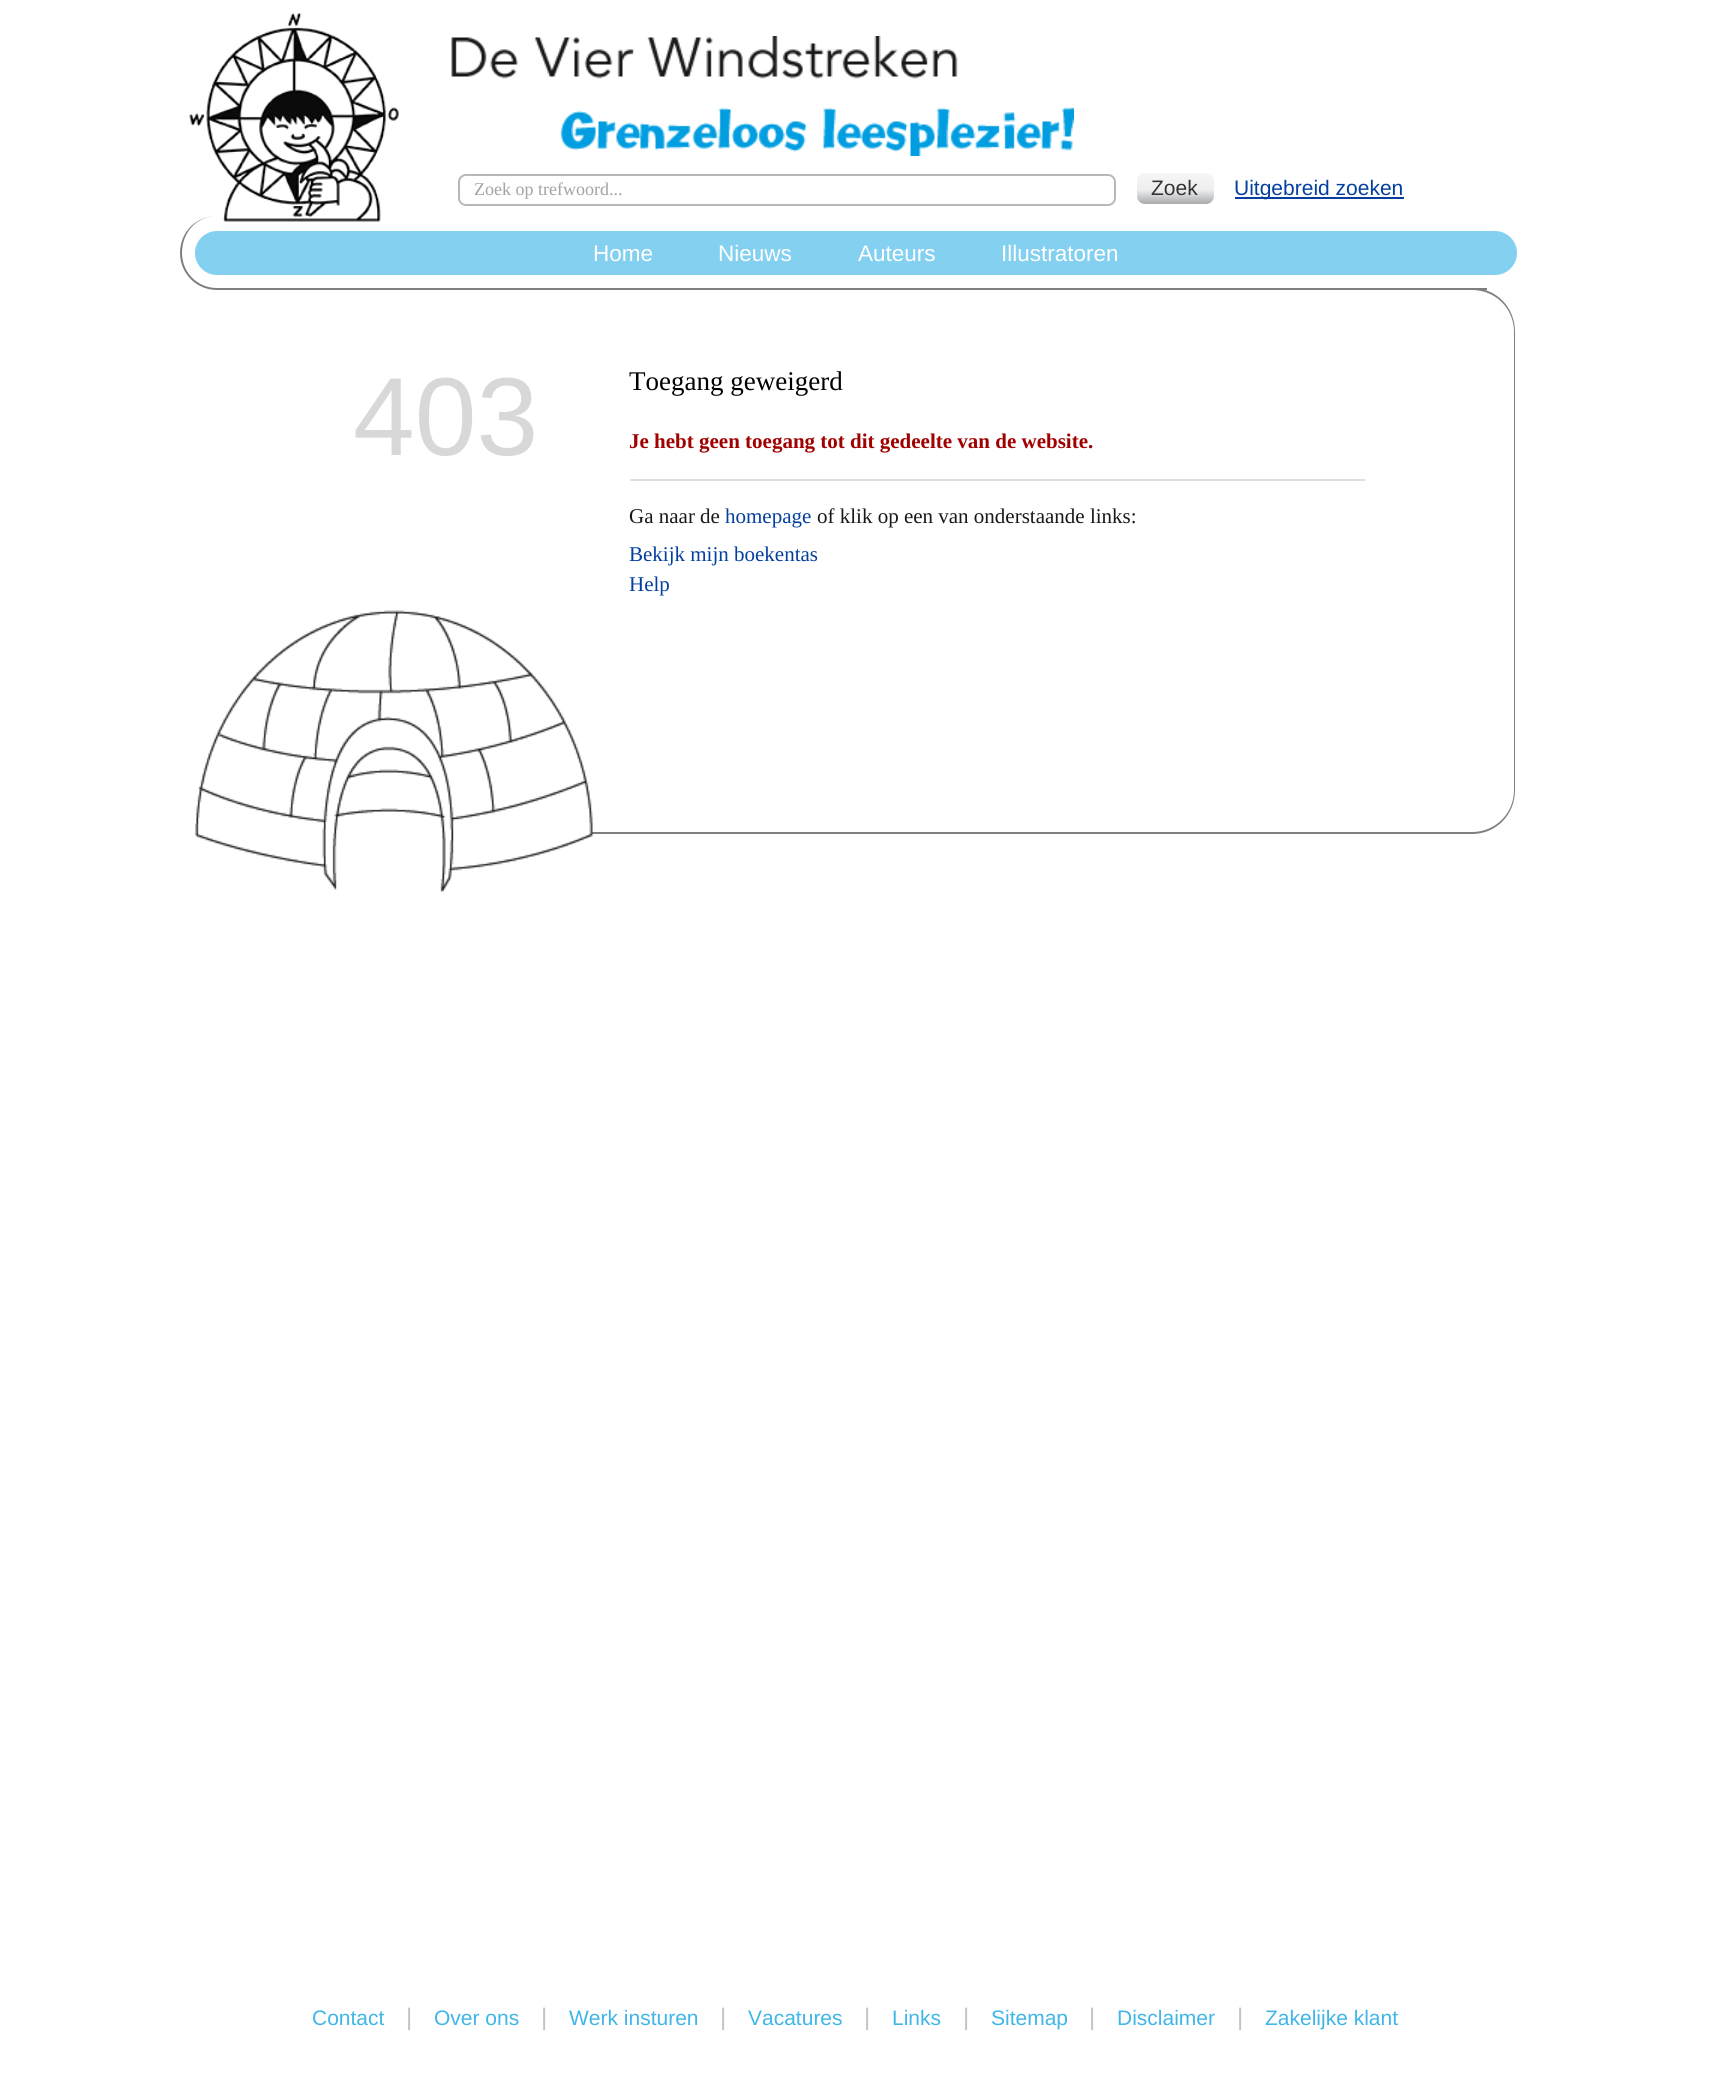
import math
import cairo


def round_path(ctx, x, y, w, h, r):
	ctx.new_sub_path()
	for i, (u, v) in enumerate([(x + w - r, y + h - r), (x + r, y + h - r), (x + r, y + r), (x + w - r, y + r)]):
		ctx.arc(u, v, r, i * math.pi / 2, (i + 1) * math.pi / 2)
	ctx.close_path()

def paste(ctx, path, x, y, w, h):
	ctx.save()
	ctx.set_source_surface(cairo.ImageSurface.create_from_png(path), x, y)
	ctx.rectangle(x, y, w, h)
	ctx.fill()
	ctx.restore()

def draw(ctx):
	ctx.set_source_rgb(1, 1, 1)
	ctx.paint()
	ctx.set_source_rgb(0.494, 0.49, 0.498)
	ctx.set_fill_rule(cairo.FILL_RULE_EVEN_ODD)
	ctx.new_path()
	ctx.move_to(195, 288)
	ctx.line_to(1472, 288)
	ctx.curve_to(1496, 288, 1515, 307, 1515, 332)
	ctx.line_to(1515, 790)
	ctx.curve_to(1515, 815, 1496, 834, 1472, 834)
	ctx.line_to(195, 834)
	ctx.close_path()
	ctx.move_to(195, 290)
	ctx.line_to(1472, 290)
	ctx.curve_to(1495, 290, 1514, 308, 1514, 332)
	ctx.line_to(1514, 790)
	ctx.curve_to(1514, 814, 1495, 832, 1472, 832)
	ctx.line_to(195, 832)
	ctx.close_path()
	ctx.fill()
	ctx.set_source_rgb(1, 1, 1)
	ctx.rectangle(195, 288, 22, 2)
	ctx.fill()
	ctx.set_source_rgb(0.494, 0.49, 0.498)
	ctx.new_path()
	ctx.move_to(217, 216)
	ctx.line_to(1530, 216)
	ctx.line_to(1530, 290)
	ctx.line_to(217, 290)
	ctx.curve_to(196, 290, 180, 273, 180, 253)
	ctx.curve_to(180, 232, 196, 216, 217, 216)
	ctx.close_path()
	ctx.move_to(217, 216)
	ctx.line_to(1530, 216)
	ctx.line_to(1530, 288)
	ctx.line_to(217, 288)
	ctx.curve_to(197, 288, 182, 272, 182, 253)
	ctx.curve_to(182, 232, 197, 216, 217, 216)
	ctx.close_path()
	ctx.fill()
	paste(ctx, 'media/1.png', 189, 13, 210, 209)
	paste(ctx, 'media/2.png', 451, 36, 623, 120)
	round_path(ctx, 459, 175, 656, 30, 7)
	ctx.set_source_rgb(0.718, 0.722, 0.725)
	ctx.stroke()
	ctx.select_font_face('Liberation Serif')
	ctx.set_font_size(18)
	ctx.set_source_rgb(0.639, 0.635, 0.643)
	ctx.move_to(474, 195)
	ctx.show_text('Zoek op trefwoord...')
	gradient = cairo.LinearGradient(1175, 173, 1175, 204)
	gradient.add_color_stop_rgba(0, 0.965, 0.965, 0.969, 1)
	gradient.add_color_stop_rgba(0.55, 0.933, 0.933, 0.937, 1)
	gradient.add_color_stop_rgba(1, 0.655, 0.663, 0.667, 1)
	ctx.set_source(gradient)
	round_path(ctx, 1137, 173, 77, 31, 8)
	ctx.fill()
	ctx.select_font_face('Liberation Sans')
	ctx.set_font_size(21)
	ctx.set_source_rgb(0.208, 0.196, 0.212)
	ctx.move_to(1151, 195)
	ctx.show_text('Zoek')
	ctx.set_source_rgb(0.016, 0.247, 0.627)
	ctx.rectangle(1235, 197, 169, 2)
	ctx.fill()
	ctx.move_to(1234, 195)
	ctx.show_text('Uitgebreid zoeken')
	ctx.set_source_rgb(0.514, 0.816, 0.941)
	round_path(ctx, 195, 231, 1322, 44, 22)
	ctx.fill()
	ctx.set_font_size(22.5)
	ctx.set_source_rgb(1, 1, 1)
	for x, y, s in [
		(593, 261, 'Home'),
		(718, 261, 'Nieuws'),
		(858, 261, 'Auteurs'),
		(1001, 261, 'Illustratoren'),
	]:
		ctx.move_to(x, y)
		ctx.show_text(s)
	ctx.rectangle(1487, 288, 43, 2)
	ctx.fill()
	ctx.set_font_size(111)
	ctx.set_source_rgb(0.847, 0.847, 0.847)
	ctx.move_to(353, 455)
	ctx.show_text('403')
	ctx.select_font_face('Liberation Serif')
	ctx.set_font_size(27)
	ctx.set_source_rgb(0, 0, 0)
	ctx.move_to(629, 390)
	ctx.show_text('Toegang geweigerd')
	ctx.select_font_face('Liberation Serif', cairo.FONT_SLANT_NORMAL, cairo.FONT_WEIGHT_BOLD)
	ctx.set_font_size(21)
	ctx.set_source_rgb(0.631, 0, 0)
	ctx.move_to(629, 448)
	ctx.show_text('Je hebt geen toegang tot dit gedeelte van de website.')
	ctx.set_source_rgb(0.875, 0.875, 0.875)
	ctx.rectangle(630, 479, 735, 2)
	ctx.fill()
	ctx.select_font_face('Liberation Serif')
	ctx.set_source_rgb(0.102, 0.09, 0.106)
	ctx.move_to(629, 523)
	ctx.show_text('Ga naar de')
	ctx.set_source_rgb(0.016, 0.247, 0.627)
	ctx.move_to(725, 523)
	ctx.show_text('homepage')
	ctx.set_source_rgb(0.102, 0.09, 0.106)
	ctx.move_to(817, 523)
	ctx.show_text('of klik op een van onderstaande links:')
	ctx.set_source_rgb(0.016, 0.247, 0.627)
	ctx.move_to(629, 561)
	ctx.show_text('Bekijk mijn boekentas')
	ctx.move_to(629, 591)
	ctx.show_text('Help')
	paste(ctx, 'media/3.png', 195, 610, 398, 283)
	ctx.select_font_face('Liberation Sans')
	ctx.set_source_rgb(0.251, 0.714, 0.91)
	ctx.move_to(312, 2025)
	ctx.show_text('Contact')
	ctx.set_font_size(24)
	ctx.set_source_rgb(0.761, 0.765, 0.769)
	ctx.move_to(406, 2025)
	ctx.show_text('|')
	ctx.set_font_size(21)
	ctx.set_source_rgb(0.251, 0.714, 0.91)
	ctx.move_to(434, 2025)
	ctx.show_text('Over ons')
	ctx.set_font_size(24)
	ctx.set_source_rgb(0.761, 0.765, 0.769)
	ctx.move_to(541, 2025)
	ctx.show_text('|')
	ctx.set_font_size(21)
	ctx.set_source_rgb(0.251, 0.714, 0.91)
	ctx.move_to(569, 2025)
	ctx.show_text('Werk insturen')
	ctx.set_font_size(24)
	ctx.set_source_rgb(0.761, 0.765, 0.769)
	ctx.move_to(720, 2025)
	ctx.show_text('|')
	ctx.set_font_size(21)
	ctx.set_source_rgb(0.251, 0.714, 0.91)
	ctx.move_to(748, 2025)
	ctx.show_text('Vacatures')
	ctx.set_font_size(24)
	ctx.set_source_rgb(0.761, 0.765, 0.769)
	ctx.move_to(864, 2025)
	ctx.show_text('|')
	ctx.set_font_size(21)
	ctx.set_source_rgb(0.251, 0.714, 0.91)
	ctx.move_to(892, 2025)
	ctx.show_text('Links')
	ctx.set_font_size(24)
	ctx.set_source_rgb(0.761, 0.765, 0.769)
	ctx.move_to(963, 2025)
	ctx.show_text('|')
	ctx.set_font_size(21)
	ctx.set_source_rgb(0.251, 0.714, 0.91)
	ctx.move_to(991, 2025)
	ctx.show_text('Sitemap')
	ctx.set_font_size(24)
	ctx.set_source_rgb(0.761, 0.765, 0.769)
	ctx.move_to(1089, 2025)
	ctx.show_text('|')
	ctx.set_font_size(21)
	ctx.set_source_rgb(0.251, 0.714, 0.91)
	ctx.move_to(1117, 2025)
	ctx.show_text('Disclaimer')
	ctx.set_font_size(24)
	ctx.set_source_rgb(0.761, 0.765, 0.769)
	ctx.move_to(1237, 2025)
	ctx.show_text('|')
	ctx.set_font_size(21)
	ctx.set_source_rgb(0.251, 0.714, 0.91)
	ctx.move_to(1265, 2025)
	ctx.show_text('Zakelijke klant')


surface = cairo.ImageSurface(cairo.FORMAT_RGB24, 1709, 2095)
ctx = cairo.Context(surface)
options = cairo.FontOptions()
options.set_hint_metrics(cairo.HINT_METRICS_OFF)
options.set_hint_style(cairo.HINT_STYLE_NONE)
ctx.set_font_options(options)
ctx.set_miter_limit(4)
draw(ctx)
surface.write_to_png('image.png')
